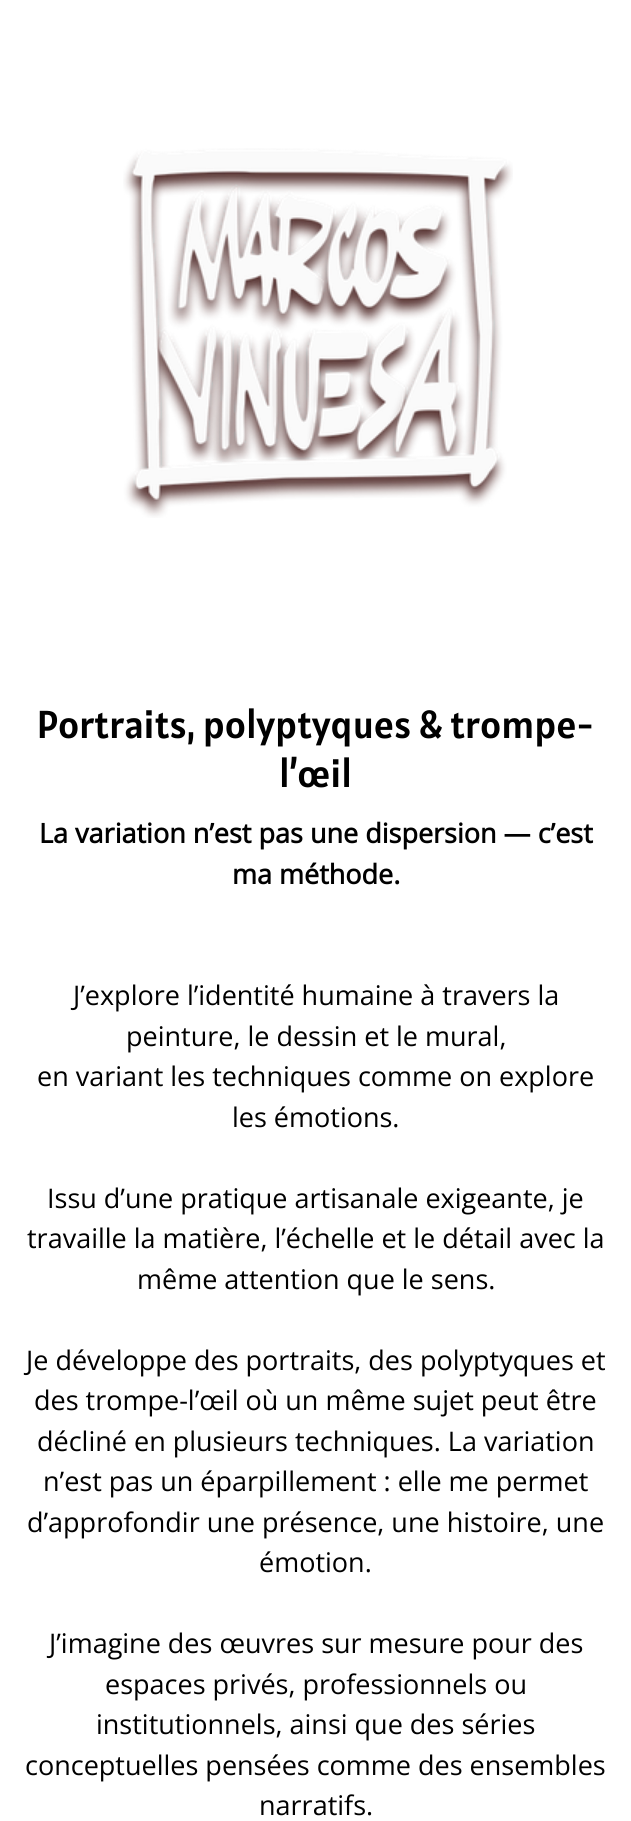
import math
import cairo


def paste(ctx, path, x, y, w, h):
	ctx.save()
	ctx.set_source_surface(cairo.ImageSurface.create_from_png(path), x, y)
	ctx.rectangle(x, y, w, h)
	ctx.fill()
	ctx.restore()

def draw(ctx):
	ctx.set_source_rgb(1, 1, 1)
	ctx.paint()
	paste(ctx, 'media/1.png', 123, 148, 390, 370)
	ctx.select_font_face('Alatsi')
	ctx.set_font_size(39)
	ctx.set_source_rgb(0, 0, 0)
	ctx.move_to(37, 738)
	ctx.show_text('Portraits, polyptyques & trompe-')
	ctx.move_to(279, 787)
	ctx.show_text('l’œil')
	ctx.select_font_face('Open Sans', cairo.FONT_SLANT_NORMAL, cairo.FONT_WEIGHT_BOLD)
	ctx.set_font_size(27)
	ctx.move_to(39, 843)
	ctx.show_text('La variation n’est pas une dispersion — c’est')
	ctx.move_to(232, 884)
	ctx.show_text('ma méthode.')
	ctx.select_font_face('Open Sans')
	for x, y, s in [
		(73, 1005, 'J’explore l’identité humaine à travers la'),
		(126, 1046, 'peinture, le dessin et le mural,'),
		(37, 1086, 'en variant les techniques comme on explore'),
		(232, 1127, 'les émotions.'),
		(47, 1208, 'Issu d’une pratique artisanale exigeante, je'),
		(27, 1248, 'travaille la matière, l’échelle et le détail avec la'),
		(137, 1289, 'même attention que le sens.'),
		(26, 1370, 'Je développe des portraits, des polyptyques et'),
		(34, 1410, 'des trompe-l’œil où un même sujet peut être'),
		(37, 1451, 'décliné en plusieurs techniques. La variation'),
		(43, 1491, 'n’est pas un éparpillement : elle me permet'),
		(27, 1532, 'd’approfondir une présence, une histoire, une'),
		(259, 1572, 'émotion.'),
		(49, 1653, 'J’imagine des œuvres sur mesure pour des'),
		(105, 1694, 'espaces privés, professionnels ou'),
		(96, 1734, 'institutionnels, ainsi que des séries'),
		(25, 1775, 'conceptuelles pensées comme des ensembles'),
		(259, 1815, 'narratifs.'),
	]:
		ctx.move_to(x, y)
		ctx.show_text(s)


surface = cairo.ImageSurface(cairo.FORMAT_RGB24, 631, 1821)
ctx = cairo.Context(surface)
options = cairo.FontOptions()
options.set_hint_metrics(cairo.HINT_METRICS_OFF)
options.set_hint_style(cairo.HINT_STYLE_NONE)
ctx.set_font_options(options)
ctx.set_miter_limit(4)
draw(ctx)
surface.write_to_png('image.png')
